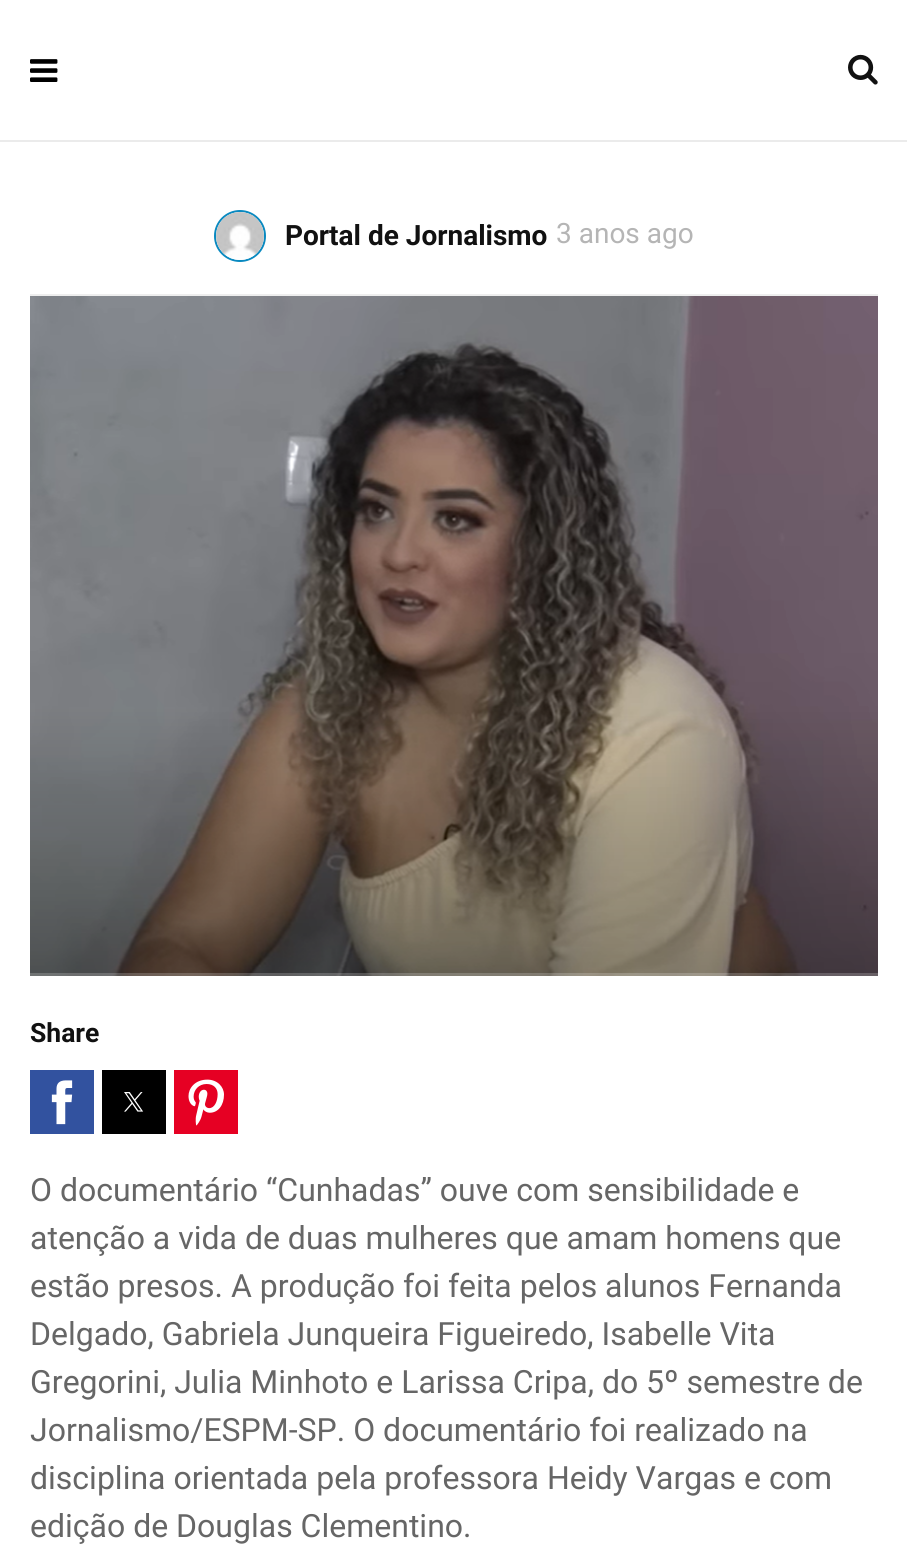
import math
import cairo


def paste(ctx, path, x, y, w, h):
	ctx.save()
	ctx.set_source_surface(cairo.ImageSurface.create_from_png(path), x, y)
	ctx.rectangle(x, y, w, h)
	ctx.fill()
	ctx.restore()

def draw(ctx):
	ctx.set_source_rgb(1, 1, 1)
	ctx.paint()
	ctx.set_source_rgb(0.918, 0.918, 0.918)
	ctx.rectangle(0, 140, 907, 2)
	ctx.fill()
	paste(ctx, 'media/1.png', 30, 59, 28, 23)
	paste(ctx, 'media/2.png', 848, 54, 30, 31)
	ctx.arc(240, 236, 25, 0, 2 * math.pi)
	ctx.set_source_rgb(0.039, 0.537, 0.753)
	ctx.stroke()
	paste(ctx, 'media/3.png', 216, 212, 48, 48)
	ctx.select_font_face('Roboto', cairo.FONT_SLANT_NORMAL, cairo.FONT_WEIGHT_BOLD)
	ctx.set_font_size(28)
	ctx.set_source_rgb(0.067, 0.067, 0.067)
	ctx.move_to(285, 245)
	ctx.show_text('Portal de Jornalismo')
	ctx.select_font_face('Roboto')
	ctx.set_source_rgb(0.71, 0.71, 0.71)
	ctx.move_to(556, 243)
	ctx.show_text('3 anos ago')
	ctx.set_source_rgb(0.933, 0.933, 0.933)
	ctx.rectangle(30, 294, 848, 2)
	ctx.fill()
	paste(ctx, 'media/4.png', 30, 296, 848, 680)
	ctx.select_font_face('Roboto', cairo.FONT_SLANT_NORMAL, cairo.FONT_WEIGHT_BOLD)
	ctx.set_font_size(26.5)
	ctx.set_source_rgb(0.067, 0.067, 0.067)
	ctx.move_to(30, 1042)
	ctx.show_text('Share')
	ctx.set_source_rgb(0.196, 0.322, 0.624)
	ctx.rectangle(30, 1070, 64, 64)
	ctx.fill()
	paste(ctx, 'media/5.png', 51, 1080, 22, 45)
	ctx.set_source_rgb(0, 0, 0)
	ctx.rectangle(102, 1070, 64, 64)
	ctx.fill()
	paste(ctx, 'media/6.png', 124, 1092, 20, 20)
	ctx.set_source_rgb(0.902, 0, 0.137)
	ctx.rectangle(174, 1070, 64, 64)
	ctx.fill()
	paste(ctx, 'media/7.png', 188, 1079, 36, 47)
	ctx.select_font_face('Roboto')
	ctx.set_font_size(32)
	ctx.set_source_rgb(0.4, 0.4, 0.4)
	for x, y, s in [
		(30, 1201, 'O documentário “Cunhadas” ouve com sensibilidade e'),
		(30, 1249, 'atenção a vida de duas mulheres que amam homens que'),
		(30, 1297, 'estão presos. A produção foi feita pelos alunos Fernanda'),
		(30, 1345, 'Delgado, Gabriela Junqueira Figueiredo, Isabelle Vita'),
		(30, 1393, 'Gregorini, Julia Minhoto e Larissa Cripa, do 5º semestre de'),
		(30, 1441, 'Jornalismo/ESPM-SP. O documentário foi realizado na'),
		(30, 1489, 'disciplina orientada pela professora Heidy Vargas e com'),
		(30, 1537, 'edição de Douglas Clementino.'),
	]:
		ctx.move_to(x, y)
		ctx.show_text(s)


surface = cairo.ImageSurface(cairo.FORMAT_RGB24, 907, 1562)
ctx = cairo.Context(surface)
options = cairo.FontOptions()
options.set_hint_metrics(cairo.HINT_METRICS_OFF)
options.set_hint_style(cairo.HINT_STYLE_NONE)
ctx.set_font_options(options)
ctx.set_miter_limit(4)
draw(ctx)
surface.write_to_png('image.png')
